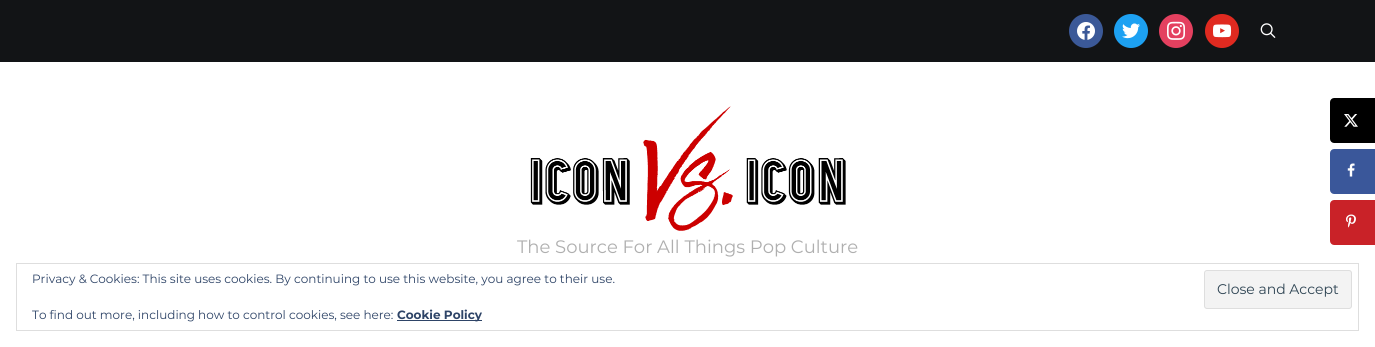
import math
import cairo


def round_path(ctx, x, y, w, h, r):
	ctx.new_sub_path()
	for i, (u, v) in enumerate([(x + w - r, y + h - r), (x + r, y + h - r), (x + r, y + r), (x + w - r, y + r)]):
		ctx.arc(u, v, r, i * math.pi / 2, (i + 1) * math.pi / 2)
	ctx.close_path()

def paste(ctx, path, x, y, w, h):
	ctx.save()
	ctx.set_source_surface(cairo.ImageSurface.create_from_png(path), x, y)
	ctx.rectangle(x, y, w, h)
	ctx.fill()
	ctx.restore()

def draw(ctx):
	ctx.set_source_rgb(1, 1, 1)
	ctx.paint()
	ctx.set_source_rgb(0, 0, 0)
	ctx.new_path()
	ctx.move_to(1334, 99)
	ctx.line_to(1374, 99)
	ctx.line_to(1374, 142)
	ctx.line_to(1334, 142)
	ctx.curve_to(1332.5, 142, 1331, 140.5, 1331, 139)
	ctx.line_to(1331, 102)
	ctx.curve_to(1331, 100.5, 1332.5, 99, 1334, 99)
	ctx.close_path()
	ctx.fill_preserve()
	ctx.stroke()
	paste(ctx, 'media/1.png', 1344, 114, 14, 13)
	ctx.set_source_rgb(0.227, 0.341, 0.604)
	ctx.new_path()
	ctx.move_to(1334, 150)
	ctx.line_to(1374, 150)
	ctx.line_to(1374, 193)
	ctx.line_to(1334, 193)
	ctx.curve_to(1332.5, 193, 1331, 191.5, 1331, 190)
	ctx.line_to(1331, 153)
	ctx.curve_to(1331, 151.5, 1332.5, 150, 1334, 150)
	ctx.close_path()
	ctx.fill_preserve()
	ctx.stroke()
	paste(ctx, 'media/2.png', 1347, 163, 8, 14)
	ctx.set_source_rgb(0.788, 0.133, 0.157)
	ctx.new_path()
	ctx.move_to(1334, 201)
	ctx.line_to(1374, 201)
	ctx.line_to(1374, 244)
	ctx.line_to(1334, 244)
	ctx.curve_to(1332.5, 244, 1331, 242.5, 1331, 241)
	ctx.line_to(1331, 204)
	ctx.curve_to(1331, 202.5, 1332.5, 201, 1334, 201)
	ctx.close_path()
	ctx.fill_preserve()
	ctx.stroke()
	paste(ctx, 'media/3.png', 1346, 214, 10, 14)
	ctx.set_source_rgb(0.071, 0.082, 0.086)
	ctx.rectangle(0, 0, 1375, 62)
	ctx.fill()
	ctx.set_source_rgb(0.231, 0.349, 0.596)
	ctx.arc(1086, 31, 17, 0, 2 * math.pi)
	ctx.fill()
	paste(ctx, 'media/4.png', 1077, 22, 18, 18)
	ctx.set_source_rgb(0.114, 0.631, 0.949)
	ctx.arc(1131, 31, 17, 0, 2 * math.pi)
	ctx.fill()
	paste(ctx, 'media/5.png', 1122, 23, 18, 16)
	ctx.set_source_rgb(0.894, 0.251, 0.373)
	ctx.arc(1176, 31, 17, 0, 2 * math.pi)
	ctx.fill()
	paste(ctx, 'media/6.png', 1167, 21, 18, 19)
	ctx.set_source_rgb(0.878, 0.165, 0.125)
	ctx.arc(1222, 31, 17, 0, 2 * math.pi)
	ctx.fill()
	paste(ctx, 'media/7.png', 1213, 24, 19, 14)
	paste(ctx, 'media/8.png', 1260, 23, 16, 15)
	paste(ctx, 'media/9.png', 530, 106, 316, 125)
	ctx.select_font_face('Montserrat')
	ctx.set_font_size(18)
	ctx.set_source_rgb(0.686, 0.686, 0.686)
	ctx.move_to(517, 253)
	ctx.show_text('The Source For All Things Pop Culture')
	ctx.rectangle(16.5, 263.5, 1342, 67)
	ctx.set_source_rgb(0.871, 0.871, 0.871)
	ctx.set_line_width(1)
	ctx.stroke()
	ctx.set_font_size(12)
	ctx.set_source_rgb(0.18, 0.267, 0.404)
	ctx.move_to(32, 283)
	ctx.show_text('Privacy & Cookies: This site uses cookies. By continuing to use this website, you agree to their use.')
	ctx.set_source_rgb(0.953, 0.953, 0.953)
	round_path(ctx, 1204.5, 270.5, 147, 38, 2.5)
	ctx.fill_preserve()
	ctx.set_source_rgb(0.871, 0.871, 0.871)
	ctx.stroke()
	ctx.set_font_size(14)
	ctx.set_source_rgb(0.18, 0.267, 0.325)
	ctx.move_to(1217, 294)
	ctx.show_text('Close and Accept')
	ctx.set_font_size(12)
	ctx.set_source_rgb(0.18, 0.267, 0.404)
	ctx.move_to(32, 319)
	ctx.show_text('To find out more, including how to control cookies, see here:')
	ctx.rectangle(397, 320, 85, 1)
	ctx.fill()
	ctx.select_font_face('Montserrat', cairo.FONT_SLANT_NORMAL, cairo.FONT_WEIGHT_BOLD)
	ctx.move_to(397, 319)
	ctx.show_text('Cookie Policy')


surface = cairo.ImageSurface(cairo.FORMAT_RGB24, 1375, 347)
ctx = cairo.Context(surface)
options = cairo.FontOptions()
options.set_hint_metrics(cairo.HINT_METRICS_OFF)
options.set_hint_style(cairo.HINT_STYLE_NONE)
ctx.set_font_options(options)
ctx.set_miter_limit(4)
draw(ctx)
surface.write_to_png('image.png')
